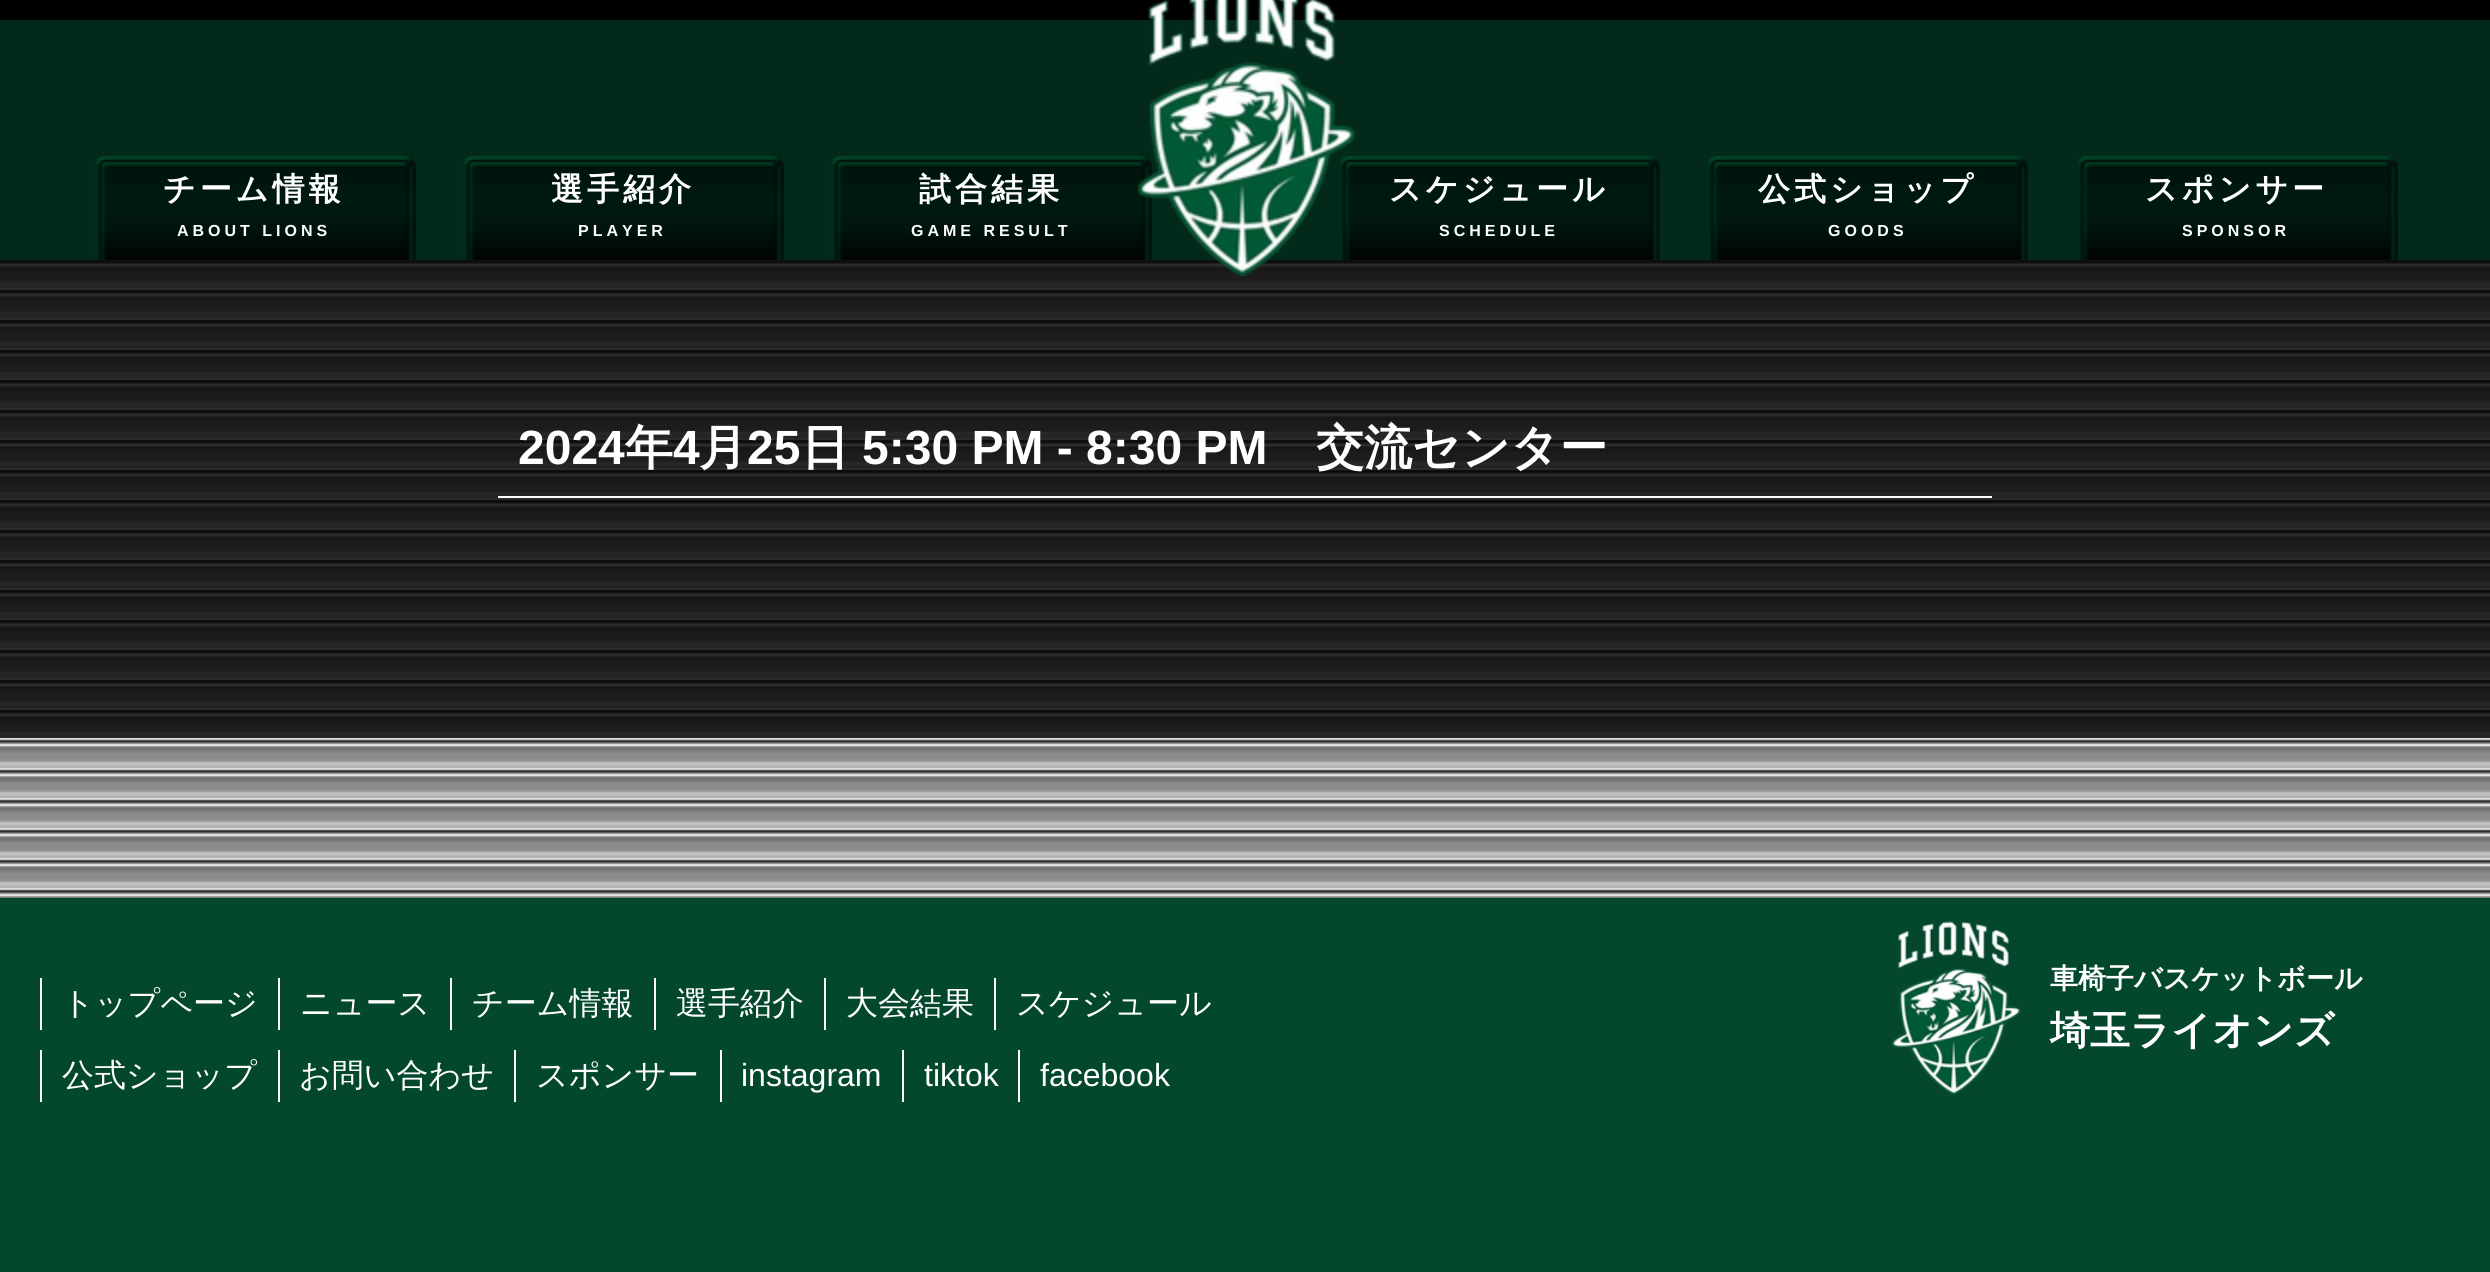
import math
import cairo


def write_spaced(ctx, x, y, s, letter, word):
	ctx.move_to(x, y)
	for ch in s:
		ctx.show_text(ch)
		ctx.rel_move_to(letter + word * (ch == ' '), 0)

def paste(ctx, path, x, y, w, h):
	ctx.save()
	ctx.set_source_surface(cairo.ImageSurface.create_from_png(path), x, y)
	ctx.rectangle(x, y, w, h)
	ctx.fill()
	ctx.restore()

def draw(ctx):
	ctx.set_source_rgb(1, 1, 1)
	ctx.paint()
	paste(ctx, 'media/1.png', 0, 260, 2490, 638)
	ctx.set_source_rgb(0, 0, 0)
	ctx.rectangle(0, 0, 2490, 20)
	ctx.fill()
	ctx.set_source_rgb(0.008, 0.161, 0.102)
	ctx.rectangle(0, 20, 2490, 240)
	ctx.fill()
	paste(ctx, 'media/3.png', 831, 156, 321, 104)
	paste(ctx, 'media/3.png', 1339, 156, 321, 104)
	ctx.set_source_rgba(0, 0, 0, 0.8)
	ctx.rectangle(0, 260, 2490, 478)
	ctx.fill()
	paste(ctx, 'media/2.png', 1137, 0, 219, 277)
	paste(ctx, 'media/3.png', 95, 156, 321, 104)
	ctx.select_font_face('WenQuanYi Zen Hei', cairo.FONT_SLANT_NORMAL, cairo.FONT_WEIGHT_BOLD)
	ctx.set_font_size(32)
	ctx.set_source_rgb(1, 1, 1)
	write_spaced(ctx, 163, 200, 'チーム情報', 4, 0)
	ctx.select_font_face('Liberation Sans', cairo.FONT_SLANT_NORMAL, cairo.FONT_WEIGHT_BOLD)
	ctx.set_font_size(16)
	write_spaced(ctx, 177, 236, 'ABOUT LIONS', 4, 0)
	paste(ctx, 'media/3.png', 463, 156, 321, 104)
	ctx.select_font_face('WenQuanYi Zen Hei', cairo.FONT_SLANT_NORMAL, cairo.FONT_WEIGHT_BOLD)
	ctx.set_font_size(32)
	write_spaced(ctx, 551, 200, '選手紹介', 4, 0)
	ctx.select_font_face('Liberation Sans', cairo.FONT_SLANT_NORMAL, cairo.FONT_WEIGHT_BOLD)
	ctx.set_font_size(16)
	write_spaced(ctx, 578, 236, 'PLAYER', 4, 0)
	ctx.select_font_face('WenQuanYi Zen Hei', cairo.FONT_SLANT_NORMAL, cairo.FONT_WEIGHT_BOLD)
	ctx.set_font_size(32)
	write_spaced(ctx, 919, 200, '試合結果', 4, 0)
	ctx.select_font_face('Liberation Sans', cairo.FONT_SLANT_NORMAL, cairo.FONT_WEIGHT_BOLD)
	ctx.set_font_size(16)
	write_spaced(ctx, 911, 236, 'GAME RESULT', 4, 0)
	ctx.select_font_face('WenQuanYi Zen Hei', cairo.FONT_SLANT_NORMAL, cairo.FONT_WEIGHT_BOLD)
	ctx.set_font_size(32)
	write_spaced(ctx, 1389, 200, 'スケジュール', 4, 0)
	ctx.select_font_face('Liberation Sans', cairo.FONT_SLANT_NORMAL, cairo.FONT_WEIGHT_BOLD)
	ctx.set_font_size(16)
	write_spaced(ctx, 1439, 236, 'SCHEDULE', 4, 0)
	paste(ctx, 'media/3.png', 1707, 156, 321, 104)
	ctx.select_font_face('WenQuanYi Zen Hei', cairo.FONT_SLANT_NORMAL, cairo.FONT_WEIGHT_BOLD)
	ctx.set_font_size(32)
	write_spaced(ctx, 1758, 200, '公式ショップ', 4, 0)
	ctx.select_font_face('Liberation Sans', cairo.FONT_SLANT_NORMAL, cairo.FONT_WEIGHT_BOLD)
	ctx.set_font_size(16)
	write_spaced(ctx, 1828, 236, 'GOODS', 4, 0)
	paste(ctx, 'media/3.png', 2077, 156, 321, 104)
	ctx.select_font_face('WenQuanYi Zen Hei', cairo.FONT_SLANT_NORMAL, cairo.FONT_WEIGHT_BOLD)
	ctx.set_font_size(32)
	write_spaced(ctx, 2145, 200, 'スポンサー', 4, 0)
	ctx.select_font_face('Liberation Sans', cairo.FONT_SLANT_NORMAL, cairo.FONT_WEIGHT_BOLD)
	ctx.set_font_size(16)
	write_spaced(ctx, 2182, 236, 'SPONSOR', 4, 0)
	ctx.rectangle(498, 496, 1494, 2)
	ctx.fill()
	ctx.set_font_size(48)
	ctx.move_to(518, 464)
	ctx.show_text('2024')
	ctx.select_font_face('WenQuanYi Zen Hei', cairo.FONT_SLANT_NORMAL, cairo.FONT_WEIGHT_BOLD)
	ctx.move_to(625, 464)
	ctx.show_text('年')
	ctx.select_font_face('Liberation Sans', cairo.FONT_SLANT_NORMAL, cairo.FONT_WEIGHT_BOLD)
	ctx.move_to(673, 464)
	ctx.show_text('4')
	ctx.select_font_face('WenQuanYi Zen Hei', cairo.FONT_SLANT_NORMAL, cairo.FONT_WEIGHT_BOLD)
	ctx.move_to(699, 464)
	ctx.show_text('月')
	ctx.select_font_face('Liberation Sans', cairo.FONT_SLANT_NORMAL, cairo.FONT_WEIGHT_BOLD)
	ctx.move_to(747, 464)
	ctx.show_text('25')
	ctx.select_font_face('WenQuanYi Zen Hei', cairo.FONT_SLANT_NORMAL, cairo.FONT_WEIGHT_BOLD)
	ctx.move_to(801, 464)
	ctx.show_text('日')
	ctx.select_font_face('Liberation Sans', cairo.FONT_SLANT_NORMAL, cairo.FONT_WEIGHT_BOLD)
	ctx.move_to(862, 464)
	ctx.show_text('5:30 PM - 8:30 PM')
	ctx.select_font_face('WenQuanYi Zen Hei', cairo.FONT_SLANT_NORMAL, cairo.FONT_WEIGHT_BOLD)
	ctx.move_to(1316, 464)
	ctx.show_text('交流センター')
	ctx.set_source_rgb(0.012, 0.278, 0.176)
	ctx.rectangle(0, 898, 2490, 374)
	ctx.fill()
	ctx.set_source_rgb(1, 1, 1)
	ctx.rectangle(40, 978, 2, 52)
	ctx.fill()
	ctx.select_font_face('WenQuanYi Zen Hei Medium')
	ctx.set_font_size(32)
	ctx.move_to(62, 1014)
	ctx.show_text('トップページ')
	ctx.rectangle(278, 978, 2, 52)
	ctx.fill()
	ctx.move_to(300, 1014)
	ctx.show_text('ニュース')
	ctx.rectangle(450, 978, 2, 52)
	ctx.fill()
	ctx.move_to(472, 1014)
	ctx.show_text('チーム情報')
	ctx.rectangle(654, 978, 2, 52)
	ctx.fill()
	ctx.move_to(676, 1014)
	ctx.show_text('選手紹介')
	ctx.rectangle(824, 978, 2, 52)
	ctx.fill()
	ctx.move_to(846, 1014)
	ctx.show_text('大会結果')
	ctx.rectangle(994, 978, 2, 52)
	ctx.fill()
	ctx.move_to(1016, 1014)
	ctx.show_text('スケジュール')
	ctx.rectangle(40, 1050, 2, 52)
	ctx.fill()
	ctx.move_to(62, 1086)
	ctx.show_text('公式ショップ')
	ctx.rectangle(278, 1050, 2, 52)
	ctx.fill()
	ctx.move_to(299, 1086)
	ctx.show_text('お問い合わせ')
	ctx.rectangle(514, 1050, 2, 52)
	ctx.fill()
	ctx.move_to(536, 1086)
	ctx.show_text('スポンサー')
	ctx.rectangle(720, 1050, 2, 52)
	ctx.fill()
	ctx.select_font_face('Liberation Sans')
	ctx.move_to(741, 1086)
	ctx.show_text('instagram')
	ctx.rectangle(902, 1050, 2, 52)
	ctx.fill()
	ctx.move_to(924, 1086)
	ctx.show_text('tiktok')
	ctx.rectangle(1018, 1050, 2, 52)
	ctx.fill()
	ctx.move_to(1040, 1086)
	ctx.show_text('facebook')
	paste(ctx, 'media/4.png', 1891, 921, 131, 175)
	ctx.select_font_face('WenQuanYi Zen Hei', cairo.FONT_SLANT_NORMAL, cairo.FONT_WEIGHT_BOLD)
	ctx.set_font_size(28)
	ctx.move_to(2050, 988)
	ctx.show_text('車椅子バスケットボール')
	ctx.set_font_size(40)
	ctx.move_to(2050, 1044)
	ctx.show_text('埼玉ライオンズ')


surface = cairo.ImageSurface(cairo.FORMAT_RGB24, 2490, 1272)
ctx = cairo.Context(surface)
options = cairo.FontOptions()
options.set_hint_metrics(cairo.HINT_METRICS_OFF)
options.set_hint_style(cairo.HINT_STYLE_NONE)
ctx.set_font_options(options)
ctx.set_miter_limit(4)
draw(ctx)
surface.write_to_png('image.png')
